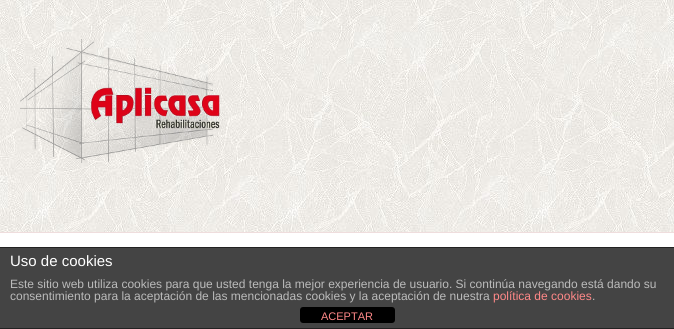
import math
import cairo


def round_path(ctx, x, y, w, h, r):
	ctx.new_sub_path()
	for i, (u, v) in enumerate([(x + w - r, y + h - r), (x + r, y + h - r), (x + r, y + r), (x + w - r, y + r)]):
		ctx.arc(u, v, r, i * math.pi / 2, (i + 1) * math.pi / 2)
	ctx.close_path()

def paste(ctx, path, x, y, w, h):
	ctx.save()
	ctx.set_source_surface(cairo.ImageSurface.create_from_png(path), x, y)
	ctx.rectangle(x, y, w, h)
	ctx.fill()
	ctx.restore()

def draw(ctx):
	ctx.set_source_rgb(1, 1, 1)
	ctx.paint()
	paste(ctx, 'media/1.png', 0, 0, 674, 232)
	ctx.set_source_rgb(0.937, 0.867, 0.867)
	ctx.rectangle(0, 232, 674, 1)
	ctx.fill()
	paste(ctx, 'media/2.png', 20, 39, 200, 124)
	ctx.set_source_rgb(0.267, 0.267, 0.267)
	ctx.rectangle(0, 248, 674, 80)
	ctx.fill()
	ctx.set_source_rgb(0.133, 0.133, 0.133)
	ctx.rectangle(0, 247, 674, 1)
	ctx.rectangle(0, 328, 674, 1)
	ctx.fill()
	ctx.select_font_face('Liberation Sans')
	ctx.set_font_size(15)
	ctx.set_source_rgb(1, 1, 1)
	ctx.move_to(10, 266)
	ctx.show_text('Uso de cookies')
	ctx.set_font_size(12)
	ctx.set_source_rgb(0.733, 0.733, 0.733)
	ctx.move_to(10, 288)
	ctx.show_text('Este sitio web utiliza cookies para que usted tenga la mejor experiencia de usuario. Si continúa navegando está dando su')
	ctx.move_to(10, 300)
	ctx.show_text('consentimiento para la aceptación de las mencionadas cookies y la aceptación de nuestra')
	ctx.set_source_rgb(1, 0.533, 0.533)
	ctx.move_to(493, 300)
	ctx.show_text('política de cookies')
	ctx.set_source_rgb(0.733, 0.733, 0.733)
	ctx.move_to(592, 300)
	ctx.show_text('.')
	ctx.set_source_rgb(0, 0, 0)
	round_path(ctx, 300, 307, 95, 16, 3)
	ctx.fill()
	ctx.set_font_size(11)
	ctx.set_source_rgb(1, 0.533, 0.533)
	ctx.move_to(321, 320)
	ctx.show_text('ACEPTAR')


surface = cairo.ImageSurface(cairo.FORMAT_RGB24, 674, 329)
ctx = cairo.Context(surface)
options = cairo.FontOptions()
options.set_hint_metrics(cairo.HINT_METRICS_OFF)
options.set_hint_style(cairo.HINT_STYLE_NONE)
ctx.set_font_options(options)
ctx.set_miter_limit(4)
draw(ctx)
surface.write_to_png('image.png')
